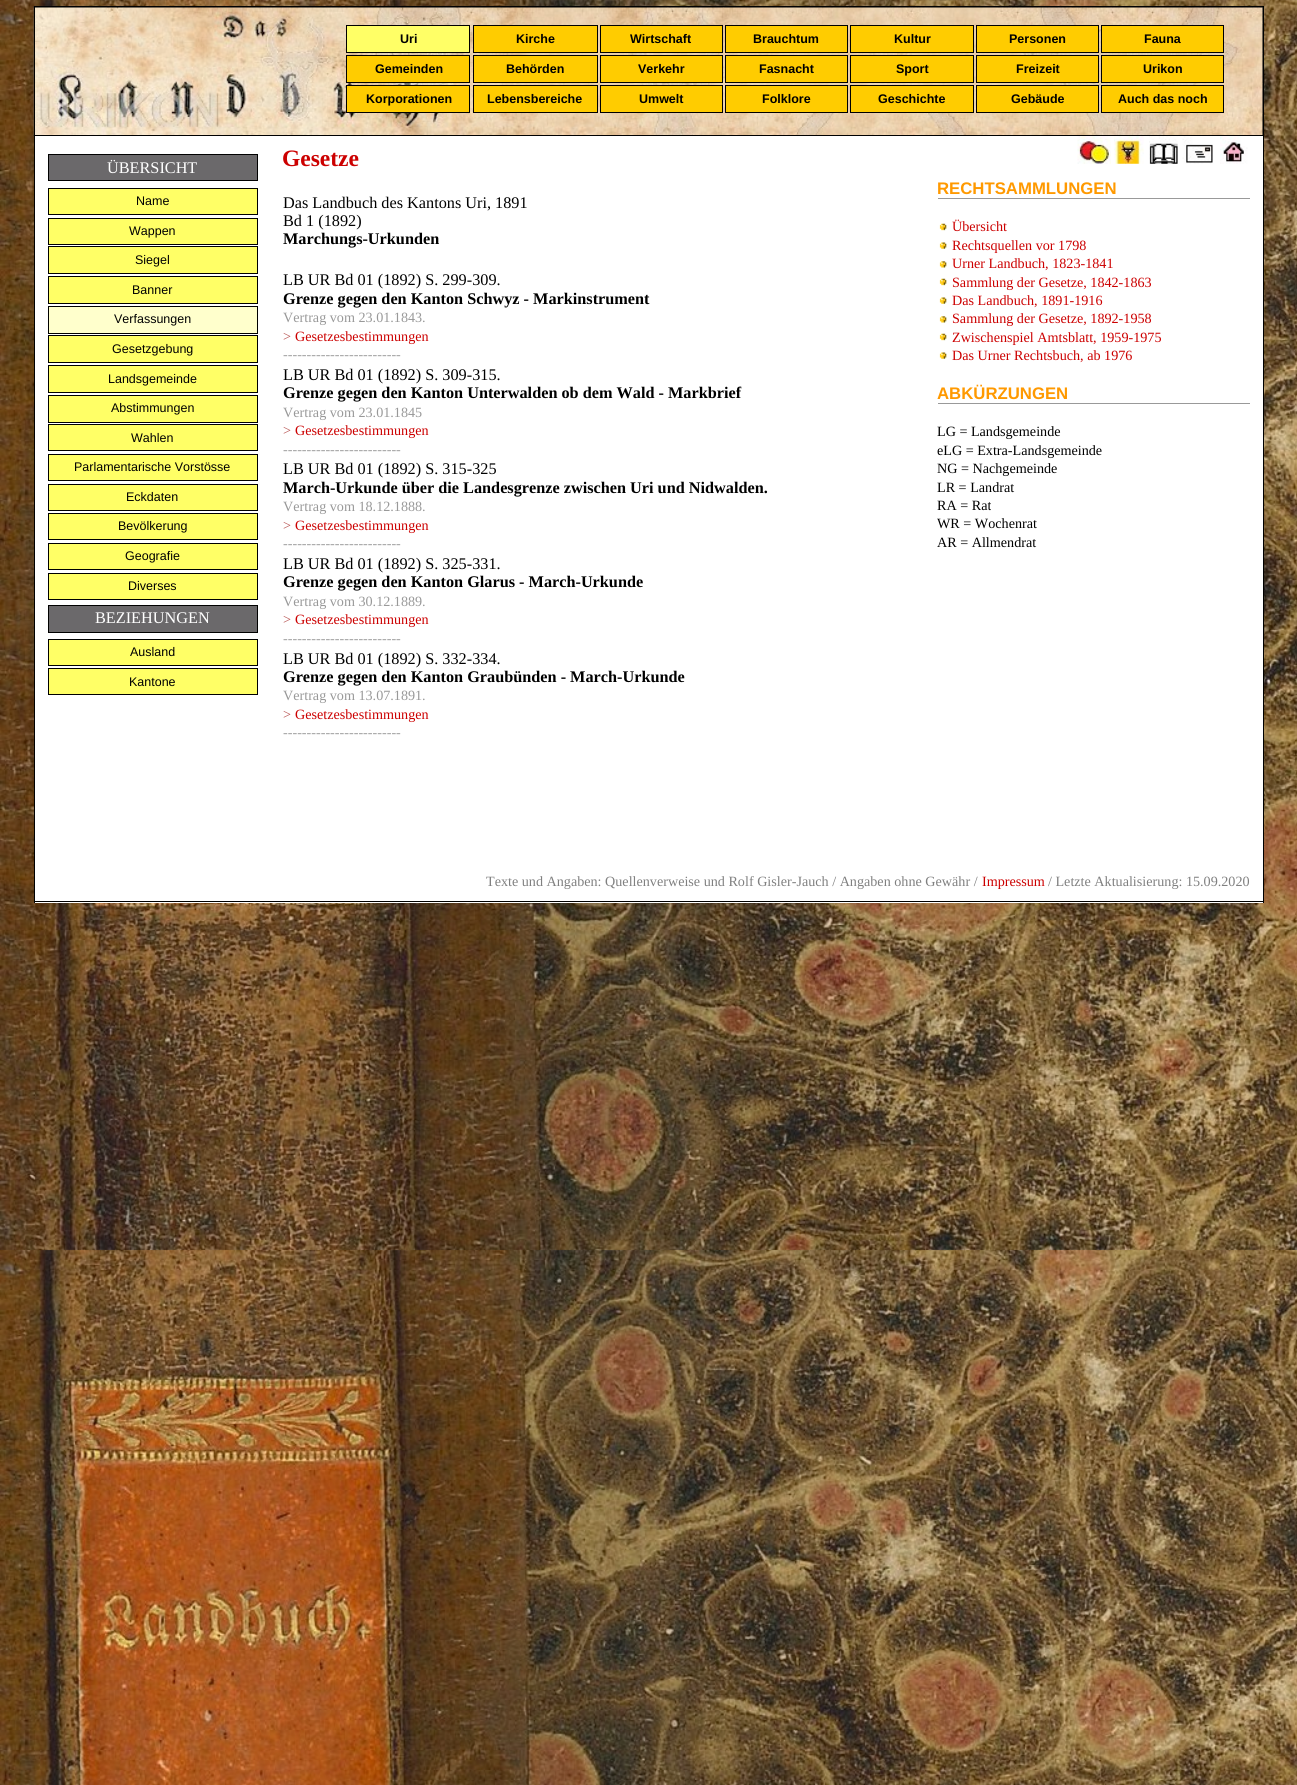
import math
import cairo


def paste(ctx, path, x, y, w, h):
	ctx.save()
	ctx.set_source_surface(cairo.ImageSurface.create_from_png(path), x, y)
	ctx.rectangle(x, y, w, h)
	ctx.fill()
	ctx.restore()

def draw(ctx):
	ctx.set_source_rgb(1, 1, 1)
	ctx.paint()
	paste(ctx, 'media/1.png', 0, 0, 1297, 1785)
	paste(ctx, 'media/2.png', 33, 6, 1230, 131)
	ctx.set_source_rgb(0, 0, 0)
	ctx.rectangle(34, 6, 1230, 1)
	ctx.rectangle(1263, 24, 1, 879)
	ctx.rectangle(1263, 6, 1, 19)
	ctx.rectangle(34, 23, 1, 2)
	ctx.rectangle(471, 135, 378, 1)
	ctx.fill()
	ctx.set_source_rgb(1, 1, 0.4)
	ctx.rectangle(346.5, 25.5, 123, 27)
	ctx.fill_preserve()
	ctx.set_source_rgb(0, 0, 0)
	ctx.set_line_width(1)
	ctx.stroke()
	ctx.select_font_face('Liberation Sans', cairo.FONT_SLANT_NORMAL, cairo.FONT_WEIGHT_BOLD)
	ctx.set_font_size(12.5)
	ctx.move_to(400, 43)
	ctx.show_text('Uri')
	ctx.set_source_rgb(1, 0.8, 0)
	ctx.rectangle(473.5, 25.5, 124, 27)
	ctx.fill_preserve()
	ctx.set_source_rgb(0, 0, 0)
	ctx.stroke()
	ctx.move_to(516, 43)
	ctx.show_text('Kirche')
	ctx.set_source_rgb(1, 0.8, 0)
	ctx.rectangle(600.5, 25.5, 122, 27)
	ctx.fill_preserve()
	ctx.set_source_rgb(0, 0, 0)
	ctx.stroke()
	ctx.move_to(630, 43)
	ctx.show_text('Wirtschaft')
	ctx.set_source_rgb(1, 0.8, 0)
	ctx.rectangle(725.5, 25.5, 122, 27)
	ctx.fill_preserve()
	ctx.set_source_rgb(0, 0, 0)
	ctx.stroke()
	ctx.move_to(753, 43)
	ctx.show_text('Brauchtum')
	ctx.set_source_rgb(1, 0.8, 0)
	ctx.rectangle(850.5, 25.5, 123, 27)
	ctx.fill_preserve()
	ctx.set_source_rgb(0, 0, 0)
	ctx.stroke()
	ctx.move_to(894, 43)
	ctx.show_text('Kultur')
	ctx.set_source_rgb(1, 0.8, 0)
	ctx.rectangle(976.5, 25.5, 122, 27)
	ctx.fill_preserve()
	ctx.set_source_rgb(0, 0, 0)
	ctx.stroke()
	ctx.move_to(1009, 43)
	ctx.show_text('Personen')
	ctx.set_source_rgb(1, 0.8, 0)
	ctx.rectangle(1101.5, 25.5, 122, 27)
	ctx.fill_preserve()
	ctx.set_source_rgb(0, 0, 0)
	ctx.stroke()
	ctx.move_to(1144, 43)
	ctx.show_text('Fauna')
	ctx.rectangle(34, 53, 1, 2)
	ctx.fill()
	ctx.set_source_rgb(1, 0.8, 0)
	ctx.rectangle(346.5, 55.5, 123, 27)
	ctx.fill_preserve()
	ctx.set_source_rgb(0, 0, 0)
	ctx.stroke()
	ctx.move_to(375, 73)
	ctx.show_text('Gemeinden')
	ctx.set_source_rgb(1, 0.8, 0)
	ctx.rectangle(473.5, 55.5, 124, 27)
	ctx.fill_preserve()
	ctx.set_source_rgb(0, 0, 0)
	ctx.stroke()
	ctx.move_to(506, 73)
	ctx.show_text('Behörden')
	ctx.set_source_rgb(1, 0.8, 0)
	ctx.rectangle(600.5, 55.5, 122, 27)
	ctx.fill_preserve()
	ctx.set_source_rgb(0, 0, 0)
	ctx.stroke()
	ctx.move_to(638, 73)
	ctx.show_text('Verkehr')
	ctx.set_source_rgb(1, 0.8, 0)
	ctx.rectangle(725.5, 55.5, 122, 27)
	ctx.fill_preserve()
	ctx.set_source_rgb(0, 0, 0)
	ctx.stroke()
	ctx.move_to(759, 73)
	ctx.show_text('Fasnacht')
	ctx.set_source_rgb(1, 0.8, 0)
	ctx.rectangle(850.5, 55.5, 123, 27)
	ctx.fill_preserve()
	ctx.set_source_rgb(0, 0, 0)
	ctx.stroke()
	ctx.move_to(896, 73)
	ctx.show_text('Sport')
	ctx.set_source_rgb(1, 0.8, 0)
	ctx.rectangle(976.5, 55.5, 122, 27)
	ctx.fill_preserve()
	ctx.set_source_rgb(0, 0, 0)
	ctx.stroke()
	ctx.move_to(1016, 73)
	ctx.show_text('Freizeit')
	ctx.set_source_rgb(1, 0.8, 0)
	ctx.rectangle(1101.5, 55.5, 122, 27)
	ctx.fill_preserve()
	ctx.set_source_rgb(0, 0, 0)
	ctx.stroke()
	ctx.move_to(1143, 73)
	ctx.show_text('Urikon')
	ctx.rectangle(34, 83, 1, 2)
	ctx.fill()
	ctx.set_source_rgb(1, 0.8, 0)
	ctx.rectangle(346.5, 85.5, 123, 27)
	ctx.fill_preserve()
	ctx.set_source_rgb(0, 0, 0)
	ctx.stroke()
	ctx.move_to(366, 103)
	ctx.show_text('Korporationen')
	ctx.set_source_rgb(1, 0.8, 0)
	ctx.rectangle(473.5, 85.5, 124, 27)
	ctx.fill_preserve()
	ctx.set_source_rgb(0, 0, 0)
	ctx.stroke()
	ctx.move_to(487, 103)
	ctx.show_text('Lebensbereiche')
	ctx.set_source_rgb(1, 0.8, 0)
	ctx.rectangle(600.5, 85.5, 122, 27)
	ctx.fill_preserve()
	ctx.set_source_rgb(0, 0, 0)
	ctx.stroke()
	ctx.move_to(639, 103)
	ctx.show_text('Umwelt')
	ctx.set_source_rgb(1, 0.8, 0)
	ctx.rectangle(725.5, 85.5, 122, 27)
	ctx.fill_preserve()
	ctx.set_source_rgb(0, 0, 0)
	ctx.stroke()
	ctx.move_to(762, 103)
	ctx.show_text('Folklore')
	ctx.set_source_rgb(1, 0.8, 0)
	ctx.rectangle(850.5, 85.5, 123, 27)
	ctx.fill_preserve()
	ctx.set_source_rgb(0, 0, 0)
	ctx.stroke()
	ctx.move_to(878, 103)
	ctx.show_text('Geschichte')
	ctx.set_source_rgb(1, 0.8, 0)
	ctx.rectangle(976.5, 85.5, 122, 27)
	ctx.fill_preserve()
	ctx.set_source_rgb(0, 0, 0)
	ctx.stroke()
	ctx.move_to(1011, 103)
	ctx.show_text('Gebäude')
	ctx.set_source_rgb(1, 0.8, 0)
	ctx.rectangle(1101.5, 85.5, 122, 27)
	ctx.fill_preserve()
	ctx.set_source_rgb(0, 0, 0)
	ctx.stroke()
	ctx.move_to(1118, 103)
	ctx.show_text('Auch das noch')
	ctx.rectangle(34, 113, 1, 2)
	ctx.fill()
	ctx.set_source_rgb(1, 1, 1)
	ctx.rectangle(35, 136, 1228, 767)
	ctx.fill()
	ctx.set_source_rgb(0, 0, 0)
	ctx.rectangle(34, 136, 1, 725)
	ctx.fill()
	ctx.set_source_rgb(0.42, 0.412, 0.42)
	ctx.rectangle(48.5, 154.5, 209, 26)
	ctx.fill_preserve()
	ctx.set_source_rgb(0, 0, 0)
	ctx.stroke()
	ctx.select_font_face('Liberation Serif')
	ctx.set_font_size(16.25)
	ctx.set_source_rgb(1, 1, 1)
	ctx.move_to(107, 173)
	ctx.show_text('ÜBERSICHT')
	ctx.set_source_rgb(1, 1, 0.4)
	ctx.rectangle(48.5, 188.5, 209, 26)
	ctx.fill_preserve()
	ctx.set_source_rgb(0, 0, 0)
	ctx.stroke()
	ctx.select_font_face('Liberation Sans')
	ctx.set_font_size(12.5)
	ctx.move_to(136, 205)
	ctx.show_text('Name')
	ctx.set_source_rgb(1, 1, 0.4)
	ctx.rectangle(48.5, 218.5, 209, 26)
	ctx.fill_preserve()
	ctx.set_source_rgb(0, 0, 0)
	ctx.stroke()
	ctx.move_to(129, 235)
	ctx.show_text('Wappen')
	ctx.set_source_rgb(1, 1, 0.4)
	ctx.rectangle(48.5, 246.5, 209, 27)
	ctx.fill_preserve()
	ctx.set_source_rgb(0, 0, 0)
	ctx.stroke()
	ctx.move_to(135, 264)
	ctx.show_text('Siegel')
	ctx.set_source_rgb(1, 1, 0.4)
	ctx.rectangle(48.5, 276.5, 209, 27)
	ctx.fill_preserve()
	ctx.set_source_rgb(0, 0, 0)
	ctx.stroke()
	ctx.move_to(132, 294)
	ctx.show_text('Banner')
	ctx.set_source_rgb(1, 1, 0.8)
	ctx.rectangle(48.5, 306.5, 209, 27)
	ctx.fill_preserve()
	ctx.set_source_rgb(0, 0, 0)
	ctx.stroke()
	ctx.move_to(114, 323)
	ctx.show_text('Verfassungen')
	ctx.set_source_rgb(1, 1, 0.4)
	ctx.rectangle(48.5, 335.5, 209, 27)
	ctx.fill_preserve()
	ctx.set_source_rgb(0, 0, 0)
	ctx.stroke()
	ctx.move_to(112, 353)
	ctx.show_text('Gesetzgebung')
	ctx.set_source_rgb(1, 1, 0.4)
	ctx.rectangle(48.5, 365.5, 209, 27)
	ctx.fill_preserve()
	ctx.set_source_rgb(0, 0, 0)
	ctx.stroke()
	ctx.move_to(108, 383)
	ctx.show_text('Landsgemeinde')
	ctx.set_source_rgb(1, 1, 0.4)
	ctx.rectangle(48.5, 395.5, 209, 27)
	ctx.fill_preserve()
	ctx.set_source_rgb(0, 0, 0)
	ctx.stroke()
	ctx.move_to(111, 412)
	ctx.show_text('Abstimmungen')
	ctx.set_source_rgb(1, 1, 0.4)
	ctx.rectangle(48.5, 424.5, 209, 26)
	ctx.fill_preserve()
	ctx.set_source_rgb(0, 0, 0)
	ctx.stroke()
	ctx.move_to(131, 442)
	ctx.show_text('Wahlen')
	ctx.set_source_rgb(1, 1, 0.4)
	ctx.rectangle(48.5, 454.5, 209, 26)
	ctx.fill_preserve()
	ctx.set_source_rgb(0, 0, 0)
	ctx.stroke()
	ctx.move_to(74, 471)
	ctx.show_text('Parlamentarische Vorstösse')
	ctx.set_source_rgb(1, 1, 0.4)
	ctx.rectangle(48.5, 484.5, 209, 26)
	ctx.fill_preserve()
	ctx.set_source_rgb(0, 0, 0)
	ctx.stroke()
	ctx.move_to(126, 501)
	ctx.show_text('Eckdaten')
	ctx.set_source_rgb(1, 1, 0.4)
	ctx.rectangle(48.5, 513.5, 209, 26)
	ctx.fill_preserve()
	ctx.set_source_rgb(0, 0, 0)
	ctx.stroke()
	ctx.move_to(118, 530)
	ctx.show_text('Bevölkerung')
	ctx.set_source_rgb(1, 1, 0.4)
	ctx.rectangle(48.5, 543.5, 209, 26)
	ctx.fill_preserve()
	ctx.set_source_rgb(0, 0, 0)
	ctx.stroke()
	ctx.move_to(125, 560)
	ctx.show_text('Geografie')
	ctx.set_source_rgb(1, 1, 0.4)
	ctx.rectangle(48.5, 573.5, 209, 26)
	ctx.fill_preserve()
	ctx.set_source_rgb(0, 0, 0)
	ctx.stroke()
	ctx.move_to(128, 590)
	ctx.show_text('Diverses')
	ctx.set_source_rgb(0.42, 0.412, 0.42)
	ctx.rectangle(48.5, 605.5, 209, 27)
	ctx.fill_preserve()
	ctx.set_source_rgb(0, 0, 0)
	ctx.stroke()
	ctx.select_font_face('Liberation Serif')
	ctx.set_font_size(16.25)
	ctx.set_source_rgb(1, 1, 1)
	ctx.move_to(95, 623)
	ctx.show_text('BEZIEHUNGEN')
	ctx.set_source_rgb(1, 1, 0.4)
	ctx.rectangle(48.5, 639.5, 209, 26)
	ctx.fill_preserve()
	ctx.set_source_rgb(0, 0, 0)
	ctx.stroke()
	ctx.select_font_face('Liberation Sans')
	ctx.set_font_size(12.5)
	ctx.move_to(130, 656)
	ctx.show_text('Ausland')
	ctx.set_source_rgb(1, 1, 0.4)
	ctx.rectangle(48.5, 668.5, 209, 26)
	ctx.fill_preserve()
	ctx.set_source_rgb(0, 0, 0)
	ctx.stroke()
	ctx.move_to(129, 686)
	ctx.show_text('Kantone')
	ctx.select_font_face('Liberation Serif', cairo.FONT_SLANT_NORMAL, cairo.FONT_WEIGHT_BOLD)
	ctx.set_font_size(23.5)
	ctx.set_source_rgb(0.8, 0, 0)
	ctx.move_to(282, 166)
	ctx.show_text('Gesetze')
	ctx.select_font_face('Liberation Serif')
	ctx.set_font_size(16.25)
	ctx.set_source_rgb(0, 0, 0)
	ctx.move_to(283, 208)
	ctx.show_text('Das Landbuch des Kantons Uri, 1891')
	ctx.move_to(283, 226)
	ctx.show_text('Bd 1 (1892)')
	ctx.select_font_face('Liberation Serif', cairo.FONT_SLANT_NORMAL, cairo.FONT_WEIGHT_BOLD)
	ctx.move_to(283, 244)
	ctx.show_text('Marchungs-Urkunden')
	ctx.select_font_face('Liberation Serif')
	ctx.move_to(283, 285)
	ctx.show_text('LB UR Bd 01 (1892) S. 299-309.')
	ctx.select_font_face('Liberation Serif', cairo.FONT_SLANT_NORMAL, cairo.FONT_WEIGHT_BOLD)
	ctx.move_to(283, 304)
	ctx.show_text('Grenze gegen den Kanton Schwyz - Markinstrument')
	ctx.select_font_face('Liberation Serif')
	ctx.set_font_size(14.15)
	ctx.set_source_rgb(0.6, 0.6, 0.6)
	ctx.move_to(283, 322)
	ctx.show_text('Vertrag vom 23.01.1843.')
	ctx.set_source_rgb(0.718, 0.325, 0.318)
	ctx.move_to(283, 341)
	ctx.show_text('>')
	ctx.set_source_rgb(0.8, 0, 0)
	ctx.move_to(295, 341)
	ctx.show_text('Gesetzesbestimmungen')
	ctx.set_source_rgb(0.627, 0.627, 0.627)
	ctx.move_to(283, 359)
	ctx.show_text('-------------------------')
	ctx.set_font_size(16.25)
	ctx.set_source_rgb(0, 0, 0)
	ctx.move_to(283, 380)
	ctx.show_text('LB UR Bd 01 (1892) S. 309-315.')
	ctx.select_font_face('Liberation Serif', cairo.FONT_SLANT_NORMAL, cairo.FONT_WEIGHT_BOLD)
	ctx.move_to(283, 398)
	ctx.show_text('Grenze gegen den Kanton Unterwalden ob dem Wald - Markbrief')
	ctx.select_font_face('Liberation Serif')
	ctx.set_font_size(14.15)
	ctx.set_source_rgb(0.6, 0.6, 0.6)
	ctx.move_to(283, 417)
	ctx.show_text('Vertrag vom 23.01.1845')
	ctx.set_source_rgb(0.718, 0.325, 0.318)
	ctx.move_to(283, 435)
	ctx.show_text('>')
	ctx.set_source_rgb(0.8, 0, 0)
	ctx.move_to(295, 435)
	ctx.show_text('Gesetzesbestimmungen')
	ctx.set_source_rgb(0.627, 0.627, 0.627)
	ctx.move_to(283, 454)
	ctx.show_text('-------------------------')
	ctx.set_font_size(16.25)
	ctx.set_source_rgb(0, 0, 0)
	ctx.move_to(283, 474)
	ctx.show_text('LB UR Bd 01 (1892) S. 315-325')
	ctx.select_font_face('Liberation Serif', cairo.FONT_SLANT_NORMAL, cairo.FONT_WEIGHT_BOLD)
	ctx.move_to(283, 493)
	ctx.show_text('March-Urkunde über die Landesgrenze zwischen Uri und Nidwalden.')
	ctx.select_font_face('Liberation Serif')
	ctx.set_font_size(14.15)
	ctx.set_source_rgb(0.6, 0.6, 0.6)
	ctx.move_to(283, 511)
	ctx.show_text('Vertrag vom 18.12.1888.')
	ctx.set_source_rgb(0.718, 0.325, 0.318)
	ctx.move_to(283, 530)
	ctx.show_text('>')
	ctx.set_source_rgb(0.8, 0, 0)
	ctx.move_to(295, 530)
	ctx.show_text('Gesetzesbestimmungen')
	ctx.set_source_rgb(0.627, 0.627, 0.627)
	ctx.move_to(283, 548)
	ctx.show_text('-------------------------')
	ctx.set_font_size(16.25)
	ctx.set_source_rgb(0, 0, 0)
	ctx.move_to(283, 569)
	ctx.show_text('LB UR Bd 01 (1892) S. 325-331.')
	ctx.select_font_face('Liberation Serif', cairo.FONT_SLANT_NORMAL, cairo.FONT_WEIGHT_BOLD)
	ctx.move_to(283, 587)
	ctx.show_text('Grenze gegen den Kanton Glarus - March-Urkunde')
	ctx.select_font_face('Liberation Serif')
	ctx.set_font_size(14.15)
	ctx.set_source_rgb(0.6, 0.6, 0.6)
	ctx.move_to(283, 606)
	ctx.show_text('Vertrag vom 30.12.1889.')
	ctx.set_source_rgb(0.718, 0.325, 0.318)
	ctx.move_to(283, 624)
	ctx.show_text('>')
	ctx.set_source_rgb(0.8, 0, 0)
	ctx.move_to(295, 624)
	ctx.show_text('Gesetzesbestimmungen')
	ctx.set_source_rgb(0.627, 0.627, 0.627)
	ctx.move_to(283, 643)
	ctx.show_text('-------------------------')
	ctx.set_font_size(16.25)
	ctx.set_source_rgb(0, 0, 0)
	ctx.move_to(283, 664)
	ctx.show_text('LB UR Bd 01 (1892) S. 332-334.')
	ctx.select_font_face('Liberation Serif', cairo.FONT_SLANT_NORMAL, cairo.FONT_WEIGHT_BOLD)
	ctx.move_to(283, 682)
	ctx.show_text('Grenze gegen den Kanton Graubünden - March-Urkunde')
	ctx.select_font_face('Liberation Serif')
	ctx.set_font_size(14.15)
	ctx.set_source_rgb(0.6, 0.6, 0.6)
	ctx.move_to(283, 700)
	ctx.show_text('Vertrag vom 13.07.1891.')
	ctx.set_source_rgb(0.718, 0.325, 0.318)
	ctx.move_to(283, 719)
	ctx.show_text('>')
	ctx.set_source_rgb(0.8, 0, 0)
	ctx.move_to(295, 719)
	ctx.show_text('Gesetzesbestimmungen')
	ctx.set_source_rgb(0.627, 0.627, 0.627)
	ctx.move_to(283, 737)
	ctx.show_text('-------------------------')
	paste(ctx, 'media/3.png', 1077, 136, 34, 28)
	paste(ctx, 'media/4.png', 1114, 136, 30, 28)
	paste(ctx, 'media/5.png', 1149, 136, 29, 28)
	paste(ctx, 'media/6.png', 1182, 136, 31, 28)
	paste(ctx, 'media/7.png', 1220, 136, 28, 28)
	ctx.set_source_rgb(0.6, 0.6, 0.6)
	ctx.rectangle(938, 198, 312, 1)
	ctx.fill()
	ctx.select_font_face('Liberation Sans', cairo.FONT_SLANT_NORMAL, cairo.FONT_WEIGHT_BOLD)
	ctx.set_font_size(16.75)
	ctx.set_source_rgb(1, 0.6, 0)
	ctx.move_to(937, 194)
	ctx.show_text('RECHTSAMMLUNGEN')
	paste(ctx, 'media/8.png', 939, 223, 8, 8)
	ctx.select_font_face('Liberation Serif')
	ctx.set_font_size(14.15)
	ctx.set_source_rgb(0.8, 0, 0)
	ctx.move_to(952, 231)
	ctx.show_text('Übersicht')
	paste(ctx, 'media/9.png', 939, 242, 8, 7)
	ctx.move_to(952, 250)
	ctx.show_text('Rechtsquellen vor 1798')
	paste(ctx, 'media/10.png', 939, 261, 8, 7)
	ctx.move_to(952, 268)
	ctx.show_text('Urner Landbuch, 1823-1841')
	paste(ctx, 'media/8.png', 939, 278, 8, 8)
	ctx.move_to(952, 287)
	ctx.show_text('Sammlung der Gesetze, 1842-1863')
	paste(ctx, 'media/9.png', 939, 297, 8, 7)
	ctx.move_to(952, 305)
	ctx.show_text('Das Landbuch, 1891-1916')
	paste(ctx, 'media/10.png', 939, 316, 8, 7)
	ctx.move_to(952, 323)
	ctx.show_text('Sammlung der Gesetze, 1892-1958')
	paste(ctx, 'media/8.png', 939, 333, 8, 8)
	ctx.move_to(952, 342)
	ctx.show_text('Zwischenspiel Amtsblatt, 1959-1975')
	paste(ctx, 'media/9.png', 939, 352, 8, 7)
	ctx.move_to(952, 360)
	ctx.show_text('Das Urner Rechtsbuch, ab 1976')
	ctx.set_source_rgb(0.6, 0.6, 0.6)
	ctx.rectangle(938, 403, 312, 1)
	ctx.fill()
	ctx.select_font_face('Liberation Sans', cairo.FONT_SLANT_NORMAL, cairo.FONT_WEIGHT_BOLD)
	ctx.set_font_size(16.75)
	ctx.set_source_rgb(1, 0.6, 0)
	ctx.move_to(937, 399)
	ctx.show_text('ABKÜRZUNGEN')
	ctx.select_font_face('Liberation Serif')
	ctx.set_font_size(14.15)
	ctx.set_source_rgb(0, 0, 0)
	for x, y, s in [
		(937, 436, 'LG = Landsgemeinde'),
		(937, 455, 'eLG = Extra-Landsgemeinde'),
		(937, 473, 'NG = Nachgemeinde'),
		(937, 492, 'LR = Landrat'),
		(937, 510, 'RA = Rat'),
		(937, 528, 'WR = Wochenrat'),
		(937, 547, 'AR = Allmendrat'),
	]:
		ctx.move_to(x, y)
		ctx.show_text(s)
	ctx.rectangle(34, 901, 1230, 1)
	ctx.fill()
	ctx.rectangle(34, 861, 1, 42)
	ctx.fill()
	ctx.set_source_rgb(0.502, 0.502, 0.502)
	ctx.move_to(486, 886)
	ctx.show_text('Texte und Angaben: Quellenverweise und Rolf Gisler-Jauch / Angaben ohne Gewähr /')
	ctx.set_source_rgb(0.8, 0, 0)
	ctx.move_to(982, 886)
	ctx.show_text('Impressum')
	ctx.set_source_rgb(0.502, 0.502, 0.502)
	ctx.move_to(1048, 886)
	ctx.show_text('/ Letzte Aktualisierung: 15.09.2020')


surface = cairo.ImageSurface(cairo.FORMAT_RGB24, 1297, 1785)
ctx = cairo.Context(surface)
options = cairo.FontOptions()
options.set_hint_metrics(cairo.HINT_METRICS_OFF)
options.set_hint_style(cairo.HINT_STYLE_NONE)
ctx.set_font_options(options)
ctx.set_miter_limit(4)
draw(ctx)
surface.write_to_png('image.png')
